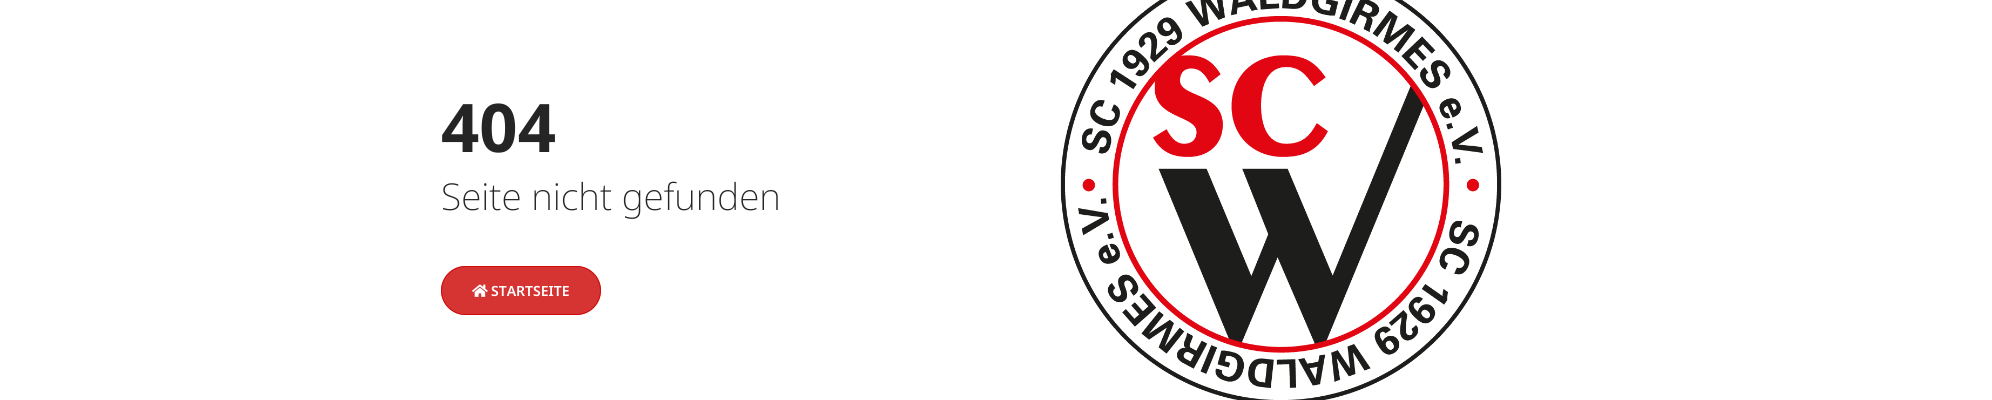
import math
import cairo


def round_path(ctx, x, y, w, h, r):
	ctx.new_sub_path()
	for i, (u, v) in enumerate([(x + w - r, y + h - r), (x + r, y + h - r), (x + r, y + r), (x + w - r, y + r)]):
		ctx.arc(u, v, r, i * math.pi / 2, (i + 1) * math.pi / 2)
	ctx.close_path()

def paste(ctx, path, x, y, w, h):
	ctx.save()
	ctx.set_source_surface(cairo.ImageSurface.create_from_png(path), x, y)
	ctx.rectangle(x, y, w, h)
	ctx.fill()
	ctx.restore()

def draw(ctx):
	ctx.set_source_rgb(1, 1, 1)
	ctx.paint()
	ctx.select_font_face('Noto Sans', cairo.FONT_SLANT_NORMAL, cairo.FONT_WEIGHT_BOLD)
	ctx.set_font_size(67)
	ctx.set_source_rgb(0.145, 0.145, 0.145)
	ctx.move_to(441, 152)
	ctx.show_text('404')
	ctx.select_font_face('Noto Sans ExtraLight')
	ctx.set_font_size(37)
	ctx.move_to(441, 210)
	ctx.show_text('Seite nicht gefunden')
	ctx.set_source_rgb(0.839, 0.2, 0.2)
	round_path(ctx, 441, 266, 160, 49, 24.5)
	ctx.fill()
	round_path(ctx, 441.5, 266.5, 159, 48, 24)
	ctx.set_source_rgba(0.8, 0, 0, 0.8)
	ctx.set_line_width(1)
	ctx.stroke()
	paste(ctx, 'media/1.png', 472, 284, 16, 13)
	ctx.select_font_face('Noto Sans SemiBold')
	ctx.set_font_size(14)
	ctx.set_source_rgb(1, 1, 1)
	ctx.move_to(491, 296)
	ctx.show_text('STARTSEITE')
	paste(ctx, 'media/2.png', 1060, 0, 442, 400)


surface = cairo.ImageSurface(cairo.FORMAT_RGB24, 1992, 400)
ctx = cairo.Context(surface)
options = cairo.FontOptions()
options.set_hint_metrics(cairo.HINT_METRICS_OFF)
options.set_hint_style(cairo.HINT_STYLE_NONE)
ctx.set_font_options(options)
ctx.set_miter_limit(4)
draw(ctx)
surface.write_to_png('image.png')
